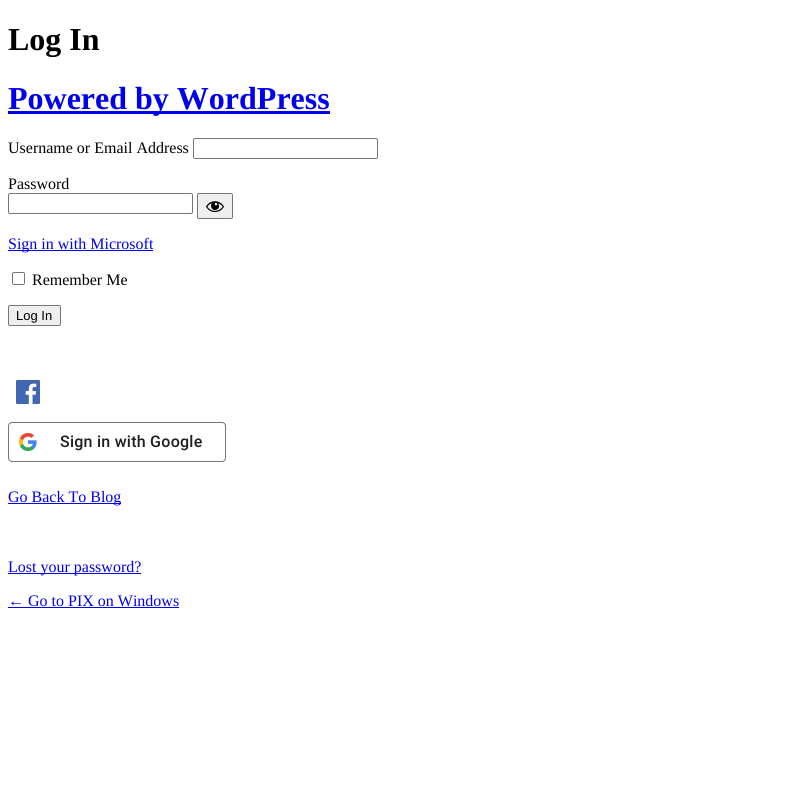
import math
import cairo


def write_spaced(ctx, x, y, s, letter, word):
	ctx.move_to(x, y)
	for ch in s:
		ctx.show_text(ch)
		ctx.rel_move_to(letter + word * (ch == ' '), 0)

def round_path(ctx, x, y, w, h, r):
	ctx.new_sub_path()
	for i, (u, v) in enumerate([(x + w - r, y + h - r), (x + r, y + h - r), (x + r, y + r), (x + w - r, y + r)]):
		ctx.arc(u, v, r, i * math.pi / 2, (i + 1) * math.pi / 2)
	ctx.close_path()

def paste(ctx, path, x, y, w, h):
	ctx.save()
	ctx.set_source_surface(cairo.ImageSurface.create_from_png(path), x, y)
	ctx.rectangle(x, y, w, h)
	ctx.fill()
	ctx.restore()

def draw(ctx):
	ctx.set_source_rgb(1, 1, 1)
	ctx.paint()
	ctx.select_font_face('Liberation Serif', cairo.FONT_SLANT_NORMAL, cairo.FONT_WEIGHT_BOLD)
	ctx.set_font_size(32)
	ctx.set_source_rgb(0, 0, 0)
	ctx.move_to(8, 50)
	ctx.show_text('Log In')
	ctx.set_source_rgb(0, 0, 0.933)
	ctx.rectangle(8, 111, 322, 3)
	ctx.fill()
	ctx.move_to(8, 109)
	ctx.show_text('Powered by WordPress')
	ctx.select_font_face('Liberation Serif')
	ctx.set_font_size(16)
	ctx.set_source_rgb(0, 0, 0)
	ctx.move_to(8, 153)
	ctx.show_text('Username or Email Address')
	round_path(ctx, 193.5, 138.5, 184, 20, 1.5)
	ctx.set_source_rgb(0.463, 0.463, 0.463)
	ctx.set_line_width(1)
	ctx.stroke()
	ctx.set_source_rgb(0, 0, 0)
	ctx.move_to(8, 189)
	ctx.show_text('Password')
	round_path(ctx, 8.5, 193.5, 184, 20, 1.5)
	ctx.set_source_rgb(0.463, 0.463, 0.463)
	ctx.stroke()
	ctx.set_source_rgb(0.937, 0.937, 0.937)
	round_path(ctx, 197.5, 193.5, 35, 25, 1.5)
	ctx.fill_preserve()
	ctx.set_source_rgb(0.463, 0.463, 0.463)
	ctx.stroke()
	paste(ctx, 'media/1.png', 206, 201, 18, 12)
	ctx.set_source_rgb(0, 0, 0.933)
	ctx.rectangle(8, 250, 145, 1)
	ctx.fill()
	ctx.move_to(8, 249)
	ctx.show_text('Sign in with Microsoft')
	round_path(ctx, 12.5, 272.5, 12, 12, 1.5)
	ctx.set_source_rgb(0.463, 0.463, 0.463)
	ctx.stroke()
	ctx.set_source_rgb(0, 0, 0)
	ctx.move_to(32, 285)
	ctx.show_text('Remember Me')
	ctx.set_source_rgb(0.937, 0.937, 0.937)
	round_path(ctx, 8.5, 305.5, 52, 20, 1.5)
	ctx.fill_preserve()
	ctx.set_source_rgb(0.463, 0.463, 0.463)
	ctx.stroke()
	ctx.select_font_face('Liberation Sans')
	ctx.set_font_size(13)
	ctx.set_source_rgb(0, 0, 0)
	ctx.move_to(16, 320)
	ctx.show_text('Log In')
	paste(ctx, 'media/2.png', 16, 380, 24, 24)
	round_path(ctx, 8.5, 422.5, 217, 39, 3.5)
	ctx.set_source_rgb(0.455, 0.467, 0.459)
	ctx.stroke()
	paste(ctx, 'media/3.png', 19, 433, 18, 18)
	ctx.select_font_face('Roboto Medium')
	ctx.set_font_size(16)
	ctx.set_source_rgb(0.122, 0.122, 0.122)
	write_spaced(ctx, 60, 447, 'Sign in with Google', 0.25, 0)
	ctx.set_source_rgb(0, 0, 0.933)
	ctx.rectangle(8, 503, 113, 1)
	ctx.fill()
	ctx.select_font_face('Liberation Serif')
	ctx.move_to(8, 502)
	ctx.show_text('Go Back To Blog')
	ctx.rectangle(8, 573, 133, 1)
	ctx.fill()
	ctx.move_to(8, 572)
	ctx.show_text('Lost your password?')
	ctx.move_to(8, 606)
	ctx.show_text('← Go to PIX on Windows')
	ctx.rectangle(8, 607, 171, 1)
	ctx.fill()


surface = cairo.ImageSurface(cairo.FORMAT_RGB24, 789, 791)
ctx = cairo.Context(surface)
options = cairo.FontOptions()
options.set_hint_metrics(cairo.HINT_METRICS_OFF)
options.set_hint_style(cairo.HINT_STYLE_NONE)
ctx.set_font_options(options)
ctx.set_miter_limit(4)
draw(ctx)
surface.write_to_png('image.png')
